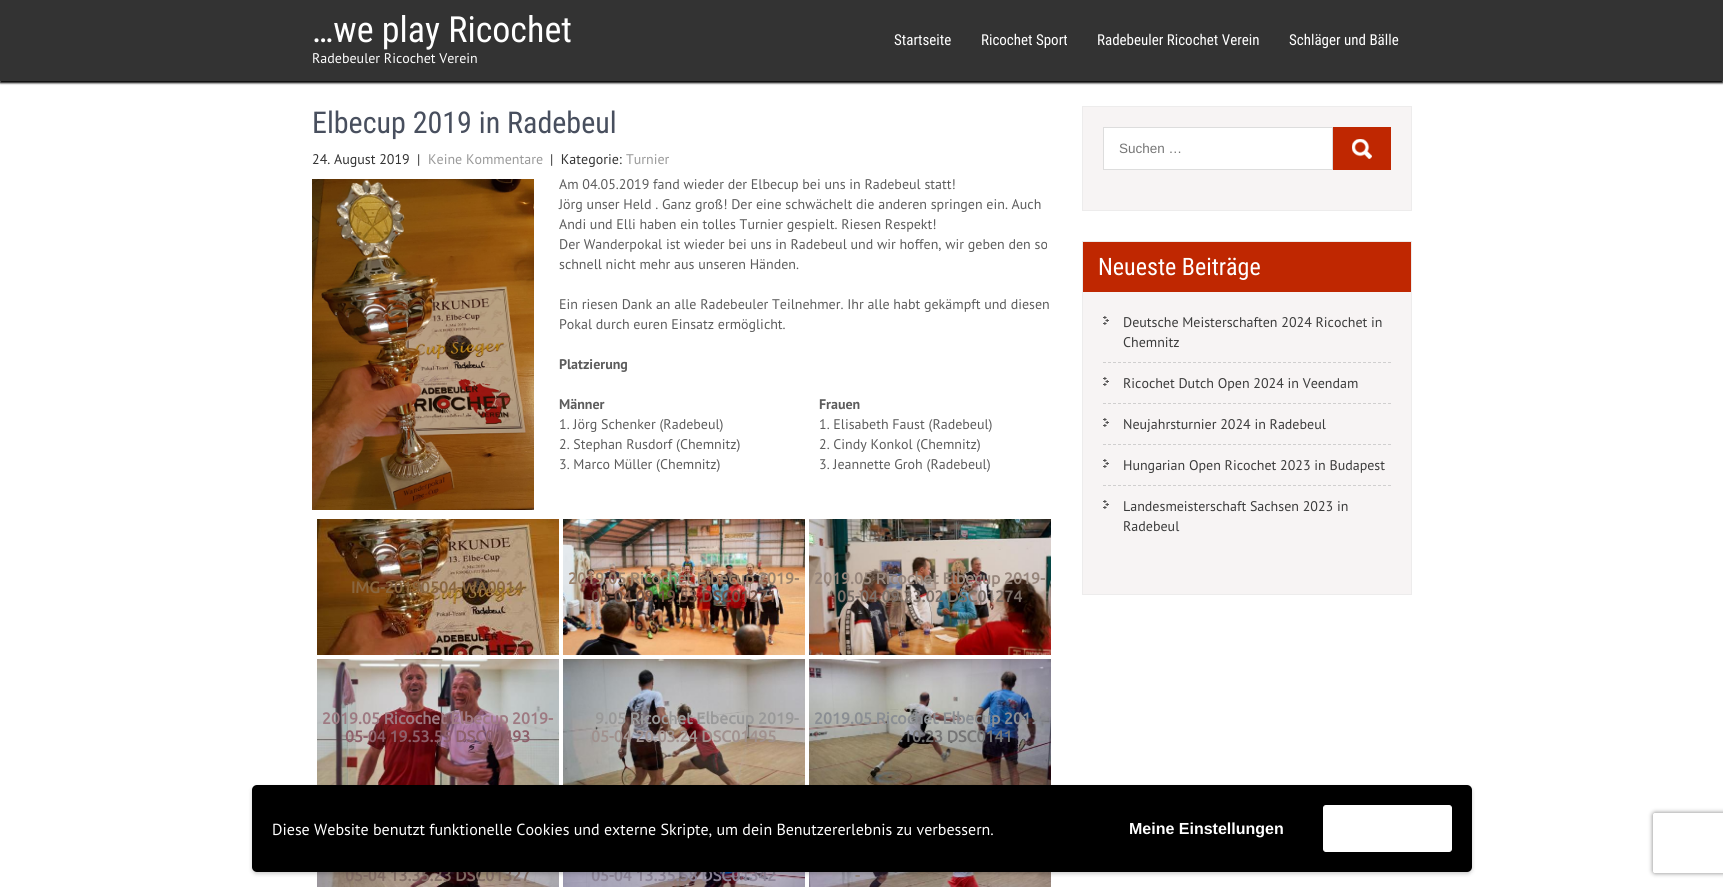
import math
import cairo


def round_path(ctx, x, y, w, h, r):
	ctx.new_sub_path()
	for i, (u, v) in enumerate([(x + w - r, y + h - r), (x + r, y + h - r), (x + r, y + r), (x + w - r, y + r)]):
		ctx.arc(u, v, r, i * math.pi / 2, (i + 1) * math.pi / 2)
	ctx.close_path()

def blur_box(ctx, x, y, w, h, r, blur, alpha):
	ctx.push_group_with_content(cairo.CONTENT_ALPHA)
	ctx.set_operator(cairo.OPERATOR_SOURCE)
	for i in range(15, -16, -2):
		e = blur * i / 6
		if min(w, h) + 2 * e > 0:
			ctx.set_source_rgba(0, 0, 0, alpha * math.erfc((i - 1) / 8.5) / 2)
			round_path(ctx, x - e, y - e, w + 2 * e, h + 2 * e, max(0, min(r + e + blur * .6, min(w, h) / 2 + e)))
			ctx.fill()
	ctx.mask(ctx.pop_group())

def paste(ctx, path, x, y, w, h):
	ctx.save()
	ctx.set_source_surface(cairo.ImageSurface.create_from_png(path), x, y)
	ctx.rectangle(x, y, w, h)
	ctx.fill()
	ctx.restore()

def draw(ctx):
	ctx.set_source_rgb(1, 1, 1)
	ctx.paint()
	ctx.set_source_rgb(0, 0, 0)
	blur_box(ctx, 0, 2, 1723, 81, 0, 1, 1)
	ctx.set_source_rgb(0.2, 0.2, 0.2)
	ctx.rectangle(0, 0, 1723, 81)
	ctx.fill()
	ctx.select_font_face('Roboto Condensed')
	ctx.set_font_size(36)
	ctx.set_source_rgb(1, 1, 1)
	ctx.move_to(312, 42)
	ctx.show_text('…we play Ricochet')
	ctx.select_font_face('PT Sans')
	ctx.set_font_size(14)
	ctx.move_to(312, 63)
	ctx.show_text('Radebeuler Ricochet Verein')
	ctx.select_font_face('Roboto Condensed')
	ctx.set_font_size(15)
	for x, y, s in [
		(894, 45, 'Startseite'),
		(981, 45, 'Ricochet Sport'),
		(1097, 45, 'Radebeuler Ricochet Verein'),
		(1289, 45, 'Schläger und Bälle'),
	]:
		ctx.move_to(x, y)
		ctx.show_text(s)
	ctx.set_font_size(30)
	ctx.set_source_rgb(0.282, 0.31, 0.369)
	ctx.move_to(312, 133)
	ctx.show_text('Elbecup 2019 in Radebeul')
	ctx.select_font_face('PT Sans')
	ctx.set_font_size(14)
	ctx.set_source_rgb(0.2, 0.2, 0.2)
	ctx.move_to(312, 164)
	ctx.show_text('24. August 2019')
	ctx.move_to(417, 164)
	ctx.show_text('|')
	ctx.set_source_rgb(0.6, 0.6, 0.6)
	ctx.move_to(428, 164)
	ctx.show_text('Keine Kommentare')
	ctx.set_source_rgb(0.2, 0.2, 0.2)
	ctx.move_to(550, 164)
	ctx.show_text('|  Kategorie:')
	ctx.set_source_rgb(0.6, 0.6, 0.6)
	ctx.move_to(626, 164)
	ctx.show_text('Turnier')
	paste(ctx, 'media/1.png', 312, 179, 222, 331)
	ctx.set_source_rgb(0.361, 0.361, 0.361)
	for x, y, s in [
		(559, 189, 'Am 04.05.2019 fand wieder der Elbecup bei uns in Radebeul statt!'),
		(559, 209, 'Jörg unser Held . Ganz groß! Der eine schwächelt die anderen springen ein. Auch'),
		(559, 229, 'Andi und Elli haben ein tolles Turnier gespielt. Riesen Respekt!'),
		(559, 249, 'Der Wanderpokal ist wieder bei uns in Radebeul und wir hoffen, wir geben den so'),
		(559, 269, 'schnell nicht mehr aus unseren Händen.'),
		(559, 309, 'Ein riesen Dank an alle Radebeuler Teilnehmer. Ihr alle habt gekämpft und diesen'),
		(559, 329, 'Pokal durch euren Einsatz ermöglicht.'),
	]:
		ctx.move_to(x, y)
		ctx.show_text(s)
	ctx.select_font_face('PT Sans', cairo.FONT_SLANT_NORMAL, cairo.FONT_WEIGHT_BOLD)
	ctx.move_to(559, 369)
	ctx.show_text('Platzierung')
	ctx.move_to(559, 409)
	ctx.show_text('Männer')
	ctx.select_font_face('PT Sans')
	for x, y, s in [
		(559, 429, '1. Jörg Schenker (Radebeul)'),
		(559, 449, '2. Stephan Rusdorf (Chemnitz)'),
		(559, 469, '3. Marco Müller (Chemnitz)'),
	]:
		ctx.move_to(x, y)
		ctx.show_text(s)
	ctx.select_font_face('PT Sans', cairo.FONT_SLANT_NORMAL, cairo.FONT_WEIGHT_BOLD)
	ctx.move_to(819, 409)
	ctx.show_text('Frauen')
	ctx.select_font_face('PT Sans')
	for x, y, s in [
		(819, 429, '1. Elisabeth Faust (Radebeul)'),
		(819, 449, '2. Cindy Konkol (Chemnitz)'),
		(819, 469, '3. Jeannette Groh (Radebeul)'),
	]:
		ctx.move_to(x, y)
		ctx.show_text(s)
	paste(ctx, 'media/2.png', 317, 519, 242, 136)
	ctx.select_font_face('Ubuntu', cairo.FONT_SLANT_NORMAL, cairo.FONT_WEIGHT_BOLD)
	ctx.set_font_size(16)
	ctx.set_source_rgb(0.537, 0.4, 0.247)
	ctx.move_to(351, 593)
	ctx.show_text('IMG-20190504-WA0014')
	paste(ctx, 'media/3.png', 563, 519, 242, 136)
	ctx.set_source_rgb(0.608, 0.51, 0.424)
	ctx.move_to(568, 584)
	ctx.show_text('2019.05 Ricochet Elbecup 2019-')
	ctx.set_source_rgb(0.451, 0.318, 0.271)
	ctx.move_to(591, 602)
	ctx.show_text('05-04 09.19.53 DSC01271')
	paste(ctx, 'media/4.png', 809, 519, 242, 136)
	ctx.set_source_rgb(0.588, 0.522, 0.482)
	ctx.move_to(814, 584)
	ctx.show_text('2019.05 Ricochet Elbecup 2019-')
	ctx.set_source_rgb(0.486, 0.439, 0.412)
	ctx.move_to(837, 602)
	ctx.show_text('05-04 09.23.02 DSC01274')
	paste(ctx, 'media/5.png', 317, 659, 242, 126)
	ctx.set_source_rgb(0.62, 0.478, 0.51)
	ctx.move_to(322, 724)
	ctx.show_text('2019.05 Ricochet Elbecup 2019-')
	ctx.set_source_rgb(0.557, 0.376, 0.416)
	ctx.move_to(345, 742)
	ctx.show_text('05-04 19.53.55 DSC01493')
	paste(ctx, 'media/6.png', 563, 659, 242, 126)
	ctx.set_source_rgb(0.6, 0.6, 0.6)
	ctx.move_to(595, 724)
	ctx.show_text('9.05 Ricochet Elbecup 2019-')
	ctx.set_source_rgb(0.627, 0.569, 0.557)
	ctx.move_to(591, 742)
	ctx.show_text('05-04 20.03.24 DSC01495')
	paste(ctx, 'media/7.png', 809, 659, 242, 126)
	ctx.set_source_rgb(0.541, 0.557, 0.576)
	ctx.move_to(814, 724)
	ctx.show_text('2019.05 Ricochet Elbecup 2019')
	ctx.set_source_rgb(0.459, 0.459, 0.459)
	ctx.move_to(899, 742)
	ctx.show_text('.10.23 DSC0141')
	paste(ctx, 'media/8.png', 317, 872, 242, 15)
	ctx.set_source_rgb(0.514, 0.431, 0.4)
	ctx.move_to(345, 881)
	ctx.show_text('05-04 13.35.23 DSC01327')
	paste(ctx, 'media/9.png', 563, 872, 242, 15)
	ctx.set_source_rgb(0.553, 0.522, 0.596)
	ctx.move_to(591, 881)
	ctx.show_text('05-04 13.35.58 DSC01342')
	paste(ctx, 'media/10.png', 809, 872, 242, 15)
	ctx.set_source_rgb(0.588, 0.522, 0.482)
	ctx.move_to(855, 881)
	ctx.show_text('-')
	ctx.set_source_rgb(0.965, 0.957, 0.957)
	ctx.rectangle(1082.5, 106.5, 329, 104)
	ctx.fill_preserve()
	ctx.set_source_rgb(0.929, 0.925, 0.925)
	ctx.set_line_width(1)
	ctx.stroke()
	ctx.set_source_rgb(1, 1, 1)
	ctx.rectangle(1103.5, 127.5, 229, 42)
	ctx.fill_preserve()
	ctx.set_source_rgb(0.867, 0.867, 0.867)
	ctx.stroke()
	ctx.select_font_face('Liberation Sans')
	ctx.set_font_size(13.5)
	ctx.set_source_rgb(0.459, 0.459, 0.459)
	ctx.move_to(1119, 153)
	ctx.show_text('Suchen …')
	ctx.set_source_rgb(0.749, 0.153, 0.004)
	ctx.rectangle(1333, 127, 58, 43)
	ctx.fill()
	paste(ctx, 'media/11.png', 1352, 139, 20, 20)
	ctx.set_source_rgb(0.965, 0.957, 0.957)
	ctx.rectangle(1083, 292, 328, 302)
	ctx.fill()
	ctx.rectangle(1082.5, 241.5, 329, 353)
	ctx.set_source_rgb(0.929, 0.925, 0.925)
	ctx.stroke()
	ctx.set_source_rgb(0.749, 0.153, 0.004)
	ctx.rectangle(1083, 242, 328, 50)
	ctx.fill()
	ctx.select_font_face('Roboto Condensed')
	ctx.set_font_size(24)
	ctx.set_source_rgb(1, 1, 1)
	ctx.move_to(1098, 275)
	ctx.show_text('Neueste Beiträge')
	paste(ctx, 'media/12.png', 1103, 316, 6, 9)
	ctx.new_path()
	ctx.move_to(1103, 362.5)
	ctx.line_to(1391, 362.5)
	ctx.set_source_rgb(0.816, 0.812, 0.812)
	ctx.set_dash([3, 2])
	ctx.stroke()
	ctx.select_font_face('PT Sans')
	ctx.set_font_size(14)
	ctx.set_source_rgb(0.231, 0.231, 0.231)
	ctx.move_to(1123, 327)
	ctx.show_text('Deutsche Meisterschaften 2024 Ricochet in')
	ctx.move_to(1123, 347)
	ctx.show_text('Chemnitz')
	paste(ctx, 'media/12.png', 1103, 377, 6, 9)
	ctx.new_path()
	ctx.move_to(1103, 403.5)
	ctx.line_to(1391, 403.5)
	ctx.set_source_rgb(0.816, 0.812, 0.812)
	ctx.stroke()
	ctx.set_source_rgb(0.231, 0.231, 0.231)
	ctx.move_to(1123, 388)
	ctx.show_text('Ricochet Dutch Open 2024 in Veendam')
	paste(ctx, 'media/12.png', 1103, 418, 6, 9)
	ctx.new_path()
	ctx.move_to(1103, 444.5)
	ctx.line_to(1391, 444.5)
	ctx.set_source_rgb(0.816, 0.812, 0.812)
	ctx.stroke()
	ctx.set_source_rgb(0.231, 0.231, 0.231)
	ctx.move_to(1123, 429)
	ctx.show_text('Neujahrsturnier 2024 in Radebeul')
	paste(ctx, 'media/12.png', 1103, 459, 6, 9)
	ctx.new_path()
	ctx.move_to(1103, 485.5)
	ctx.line_to(1391, 485.5)
	ctx.set_source_rgb(0.816, 0.812, 0.812)
	ctx.stroke()
	ctx.set_source_rgb(0.231, 0.231, 0.231)
	ctx.move_to(1123, 470)
	ctx.show_text('Hungarian Open Ricochet 2023 in Budapest')
	paste(ctx, 'media/12.png', 1103, 500, 6, 9)
	ctx.move_to(1123, 511)
	ctx.show_text('Landesmeisterschaft Sachsen 2023 in')
	ctx.move_to(1123, 531)
	ctx.show_text('Radebeul')
	ctx.save()
	ctx.set_fill_rule(cairo.FILL_RULE_EVEN_ODD)
	ctx.new_path()
	ctx.move_to(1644, 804)
	ctx.line_to(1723, 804)
	ctx.line_to(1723, 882)
	ctx.line_to(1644, 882)
	ctx.close_path()
	ctx.move_to(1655, 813)
	ctx.line_to(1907, 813)
	ctx.curve_to(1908, 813, 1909, 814, 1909, 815)
	ctx.line_to(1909, 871)
	ctx.curve_to(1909, 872, 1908, 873, 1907, 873)
	ctx.line_to(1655, 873)
	ctx.curve_to(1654, 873, 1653, 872, 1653, 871)
	ctx.line_to(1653, 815)
	ctx.curve_to(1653, 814, 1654, 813, 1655, 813)
	ctx.close_path()
	ctx.clip()
	ctx.set_source_rgb(0.502, 0.502, 0.502)
	blur_box(ctx, 1653, 813, 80, 60, 2, 2.5, 1)
	ctx.restore()
	ctx.set_source_rgb(0, 0, 0)
	blur_box(ctx, 252, 787, 1220, 87, 5, 2, 0.2)
	ctx.set_source_rgb(0, 0, 0)
	round_path(ctx, 252, 785, 1220, 87, 5)
	ctx.fill()
	ctx.set_font_size(16)
	ctx.set_source_rgb(1, 1, 1)
	ctx.move_to(272, 835)
	ctx.show_text('Diese Website benutzt funktionelle Cookies und externe Skripte, um dein Benutzererlebnis zu verbessern.')
	ctx.select_font_face('Liberation Sans', cairo.FONT_SLANT_NORMAL, cairo.FONT_WEIGHT_BOLD)
	ctx.move_to(1129, 834)
	ctx.show_text('Meine Einstellungen')
	round_path(ctx, 1323.5, 805.5, 128, 46, 2.5)
	ctx.fill_preserve()
	ctx.set_dash([])
	ctx.stroke()


surface = cairo.ImageSurface(cairo.FORMAT_RGB24, 1723, 887)
ctx = cairo.Context(surface)
options = cairo.FontOptions()
options.set_hint_metrics(cairo.HINT_METRICS_OFF)
options.set_hint_style(cairo.HINT_STYLE_NONE)
ctx.set_font_options(options)
ctx.set_miter_limit(4)
draw(ctx)
surface.write_to_png('image.png')
